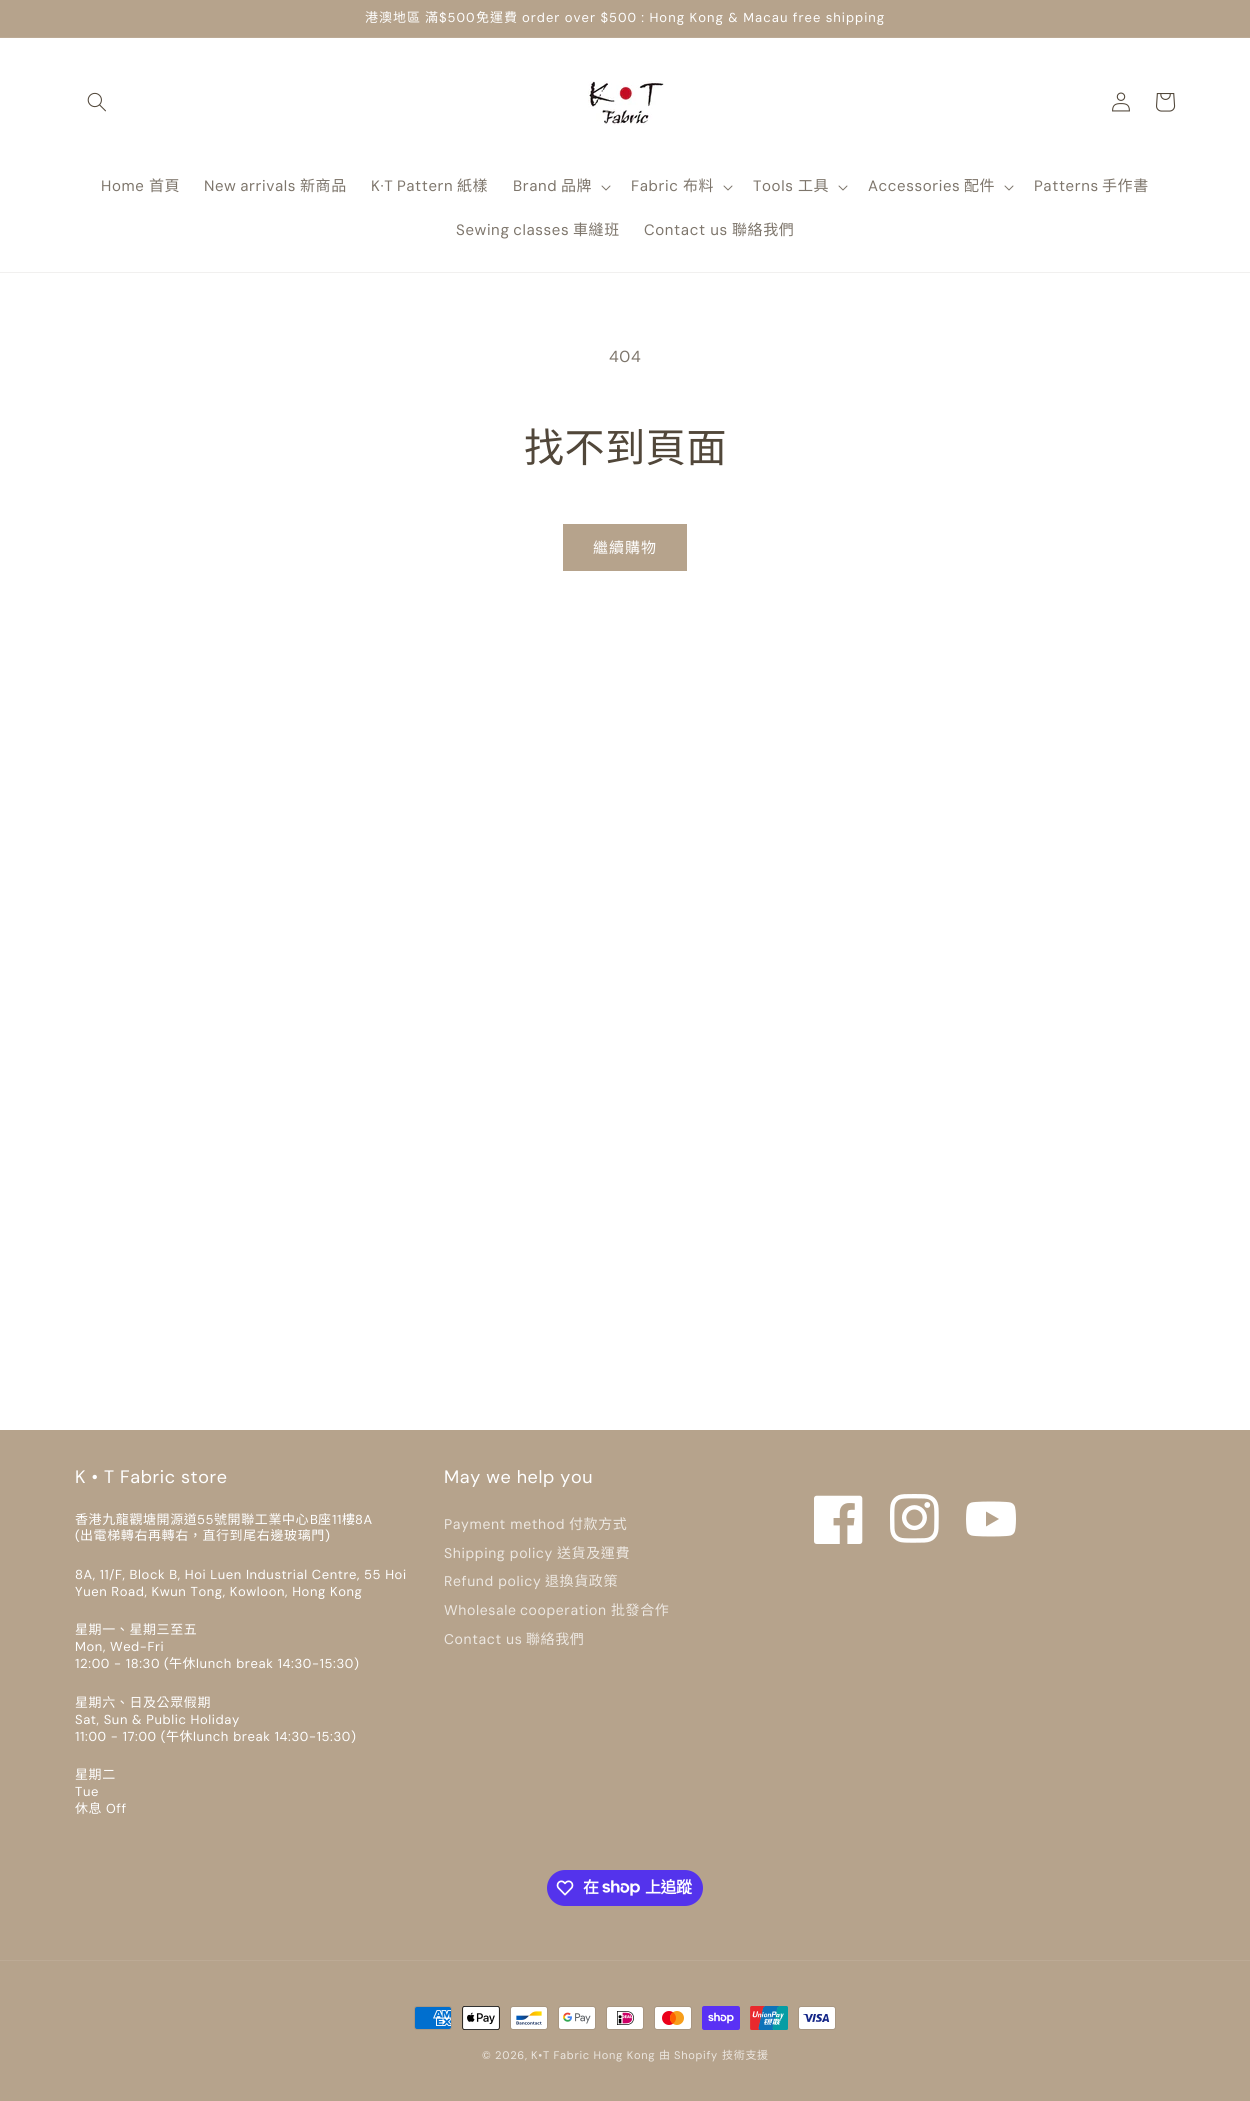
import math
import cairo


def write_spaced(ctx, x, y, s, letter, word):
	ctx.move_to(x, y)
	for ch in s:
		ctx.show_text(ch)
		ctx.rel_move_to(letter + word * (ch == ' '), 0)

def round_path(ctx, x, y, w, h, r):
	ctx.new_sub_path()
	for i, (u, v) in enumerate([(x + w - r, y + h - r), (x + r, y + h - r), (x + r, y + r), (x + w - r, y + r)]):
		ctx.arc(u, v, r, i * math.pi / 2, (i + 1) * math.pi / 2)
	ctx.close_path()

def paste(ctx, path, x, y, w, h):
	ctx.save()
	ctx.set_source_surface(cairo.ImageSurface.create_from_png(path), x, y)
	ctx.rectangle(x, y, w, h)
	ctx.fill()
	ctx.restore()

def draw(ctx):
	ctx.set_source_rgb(1, 1, 1)
	ctx.paint()
	ctx.set_source_rgb(0.714, 0.639, 0.549)
	ctx.rectangle(0, 0, 1250, 37)
	ctx.fill()
	ctx.set_source_rgb(0.737, 0.667, 0.584)
	ctx.rectangle(0, 37, 1250, 1)
	ctx.fill()
	ctx.select_font_face('Noto Sans CJK TC')
	ctx.set_font_size(13)
	ctx.set_source_rgb(1, 1, 1)
	write_spaced(ctx, 365, 22, '港澳地區', 1, 0)
	write_spaced(ctx, 425, 22, '滿', 1, 0)
	ctx.select_font_face('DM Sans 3')
	write_spaced(ctx, 439, 22, '$500', 1, 0)
	ctx.select_font_face('Noto Sans CJK TC')
	write_spaced(ctx, 476, 22, '免運費', 1, 0)
	ctx.select_font_face('DM Sans 3')
	write_spaced(ctx, 522, 22, 'order over $500 : Hong Kong & Macau free shipping', 1, -0.1)
	ctx.set_source_rgb(0.945, 0.941, 0.937)
	ctx.rectangle(0, 272, 1250, 1)
	ctx.fill()
	paste(ctx, 'media/1.png', 87, 92, 19, 20)
	paste(ctx, 'media/2.png', 588, 81, 76, 44)
	paste(ctx, 'media/3.png', 1112, 92, 18, 20)
	paste(ctx, 'media/4.png', 1156, 93, 20, 19)
	ctx.set_font_size(15)
	ctx.set_source_rgb(0.49, 0.459, 0.42)
	write_spaced(ctx, 101, 191, 'Home', 0.6, 0)
	ctx.select_font_face('Noto Sans CJK TC')
	write_spaced(ctx, 149, 191, '首頁', 0.6, 0)
	ctx.select_font_face('DM Sans 3')
	write_spaced(ctx, 204, 191, 'New arrivals', 0.6, -1)
	ctx.select_font_face('Noto Sans CJK TC')
	write_spaced(ctx, 300, 191, '新商品', 0.6, 0)
	ctx.select_font_face('DM Sans 3')
	write_spaced(ctx, 371, 191, 'K·T Pattern', 0.6, -1)
	ctx.select_font_face('Noto Sans CJK TC')
	write_spaced(ctx, 457, 191, '紙樣', 0.6, 0)
	ctx.select_font_face('DM Sans 3')
	write_spaced(ctx, 513, 191, 'Brand', 0.6, 0)
	ctx.select_font_face('Noto Sans CJK TC')
	write_spaced(ctx, 561, 191, '品牌', 0.6, 0)
	paste(ctx, 'media/5.png', 601, 185, 10, 6)
	ctx.select_font_face('DM Sans 3')
	write_spaced(ctx, 631, 191, 'Fabric', 0.6, 0)
	ctx.select_font_face('Noto Sans CJK TC')
	write_spaced(ctx, 683, 191, '布料', 0.6, 0)
	paste(ctx, 'media/5.png', 723, 185, 10, 6)
	ctx.select_font_face('DM Sans 3')
	write_spaced(ctx, 753, 191, 'Tools', 0.6, 0)
	ctx.select_font_face('Noto Sans CJK TC')
	write_spaced(ctx, 798, 191, '工具', 0.6, 0)
	paste(ctx, 'media/5.png', 838, 185, 10, 6)
	ctx.select_font_face('DM Sans 3')
	write_spaced(ctx, 868, 191, 'Accessories', 0.6, 0)
	ctx.select_font_face('Noto Sans CJK TC')
	write_spaced(ctx, 964, 191, '配件', 0.6, 0)
	paste(ctx, 'media/5.png', 1004, 185, 10, 6)
	ctx.select_font_face('DM Sans 3')
	write_spaced(ctx, 1034, 191, 'Patterns', 0.6, 0)
	ctx.select_font_face('Noto Sans CJK TC')
	write_spaced(ctx, 1102, 191, '手作書', 0.6, 0)
	ctx.select_font_face('DM Sans 3')
	write_spaced(ctx, 456, 235, 'Sewing classes', 0.6, -1)
	ctx.select_font_face('Noto Sans CJK TC')
	write_spaced(ctx, 573, 235, '車縫班', 0.6, 0)
	ctx.select_font_face('DM Sans 3')
	write_spaced(ctx, 644, 235, 'Contact us', 0.6, 0)
	ctx.select_font_face('Noto Sans CJK TC')
	write_spaced(ctx, 732, 235, '聯絡我們', 0.6, 0)
	ctx.select_font_face('DM Sans')
	ctx.set_font_size(16)
	write_spaced(ctx, 609, 362, '404', 0.6, 0)
	ctx.select_font_face('Noto Sans CJK TC')
	ctx.set_font_size(40)
	ctx.set_source_rgb(0.318, 0.278, 0.227)
	write_spaced(ctx, 524, 462, '找不到頁面', 0.6, 0)
	ctx.set_source_rgb(0.714, 0.639, 0.549)
	ctx.rectangle(563, 524, 124, 47)
	ctx.fill()
	ctx.set_font_size(15)
	ctx.set_source_rgb(1, 1, 1)
	write_spaced(ctx, 593, 553, '繼續購物', 1, 0)
	ctx.set_source_rgb(0.714, 0.639, 0.549)
	ctx.rectangle(0, 1430, 1250, 671)
	ctx.fill()
	ctx.select_font_face('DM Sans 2')
	ctx.set_font_size(18)
	ctx.set_source_rgb(1, 1, 1)
	write_spaced(ctx, 75, 1483, 'K • T Fabric store', 0.6, 0)
	ctx.select_font_face('Noto Sans CJK TC')
	ctx.set_font_size(13)
	write_spaced(ctx, 75, 1524, '香港九龍觀塘開源道', 0.6, 0)
	ctx.select_font_face('DM Sans 3')
	write_spaced(ctx, 197, 1524, '55', 0.6, 0)
	ctx.select_font_face('Noto Sans CJK TC')
	write_spaced(ctx, 214, 1524, '號開聯工業中心', 0.6, 0)
	ctx.select_font_face('DM Sans 3')
	write_spaced(ctx, 310, 1524, 'B', 0.6, 0)
	ctx.select_font_face('Noto Sans CJK TC')
	write_spaced(ctx, 318, 1524, '座', 0.6, 0)
	ctx.select_font_face('DM Sans 3')
	write_spaced(ctx, 332, 1524, '11', 0.6, 0)
	ctx.select_font_face('Noto Sans CJK TC')
	write_spaced(ctx, 342, 1524, '樓', 0.6, 0)
	ctx.select_font_face('DM Sans 3')
	write_spaced(ctx, 355, 1524, '8A', 0.6, 0)
	write_spaced(ctx, 75, 1540, '(', 0.6, 0)
	ctx.select_font_face('Noto Sans CJK TC')
	write_spaced(ctx, 80, 1540, '出電梯轉右再轉右，直行到尾右邊玻璃門', 0.6, 0)
	ctx.select_font_face('DM Sans 3')
	write_spaced(ctx, 325, 1540, ')', 0.6, 0)
	ctx.select_font_face('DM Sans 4')
	write_spaced(ctx, 75, 1579, '8A, 11/F, Block B, Hoi Luen Industrial Centre, 55 Hoi', 0.6, 0)
	write_spaced(ctx, 75, 1596, 'Yuen Road, Kwun Tong, Kowloon, Hong Kong', 0.6, 0)
	ctx.select_font_face('Noto Sans CJK TC')
	write_spaced(ctx, 75, 1634, '星期一、星期三至五', 0.6, 0)
	ctx.select_font_face('DM Sans 4')
	write_spaced(ctx, 75, 1651, 'Mon, Wed-Fri', 0.6, 0)
	ctx.select_font_face('DM Sans 3')
	write_spaced(ctx, 75, 1668, '12:00 - 18:30 (', 0.6, 0)
	ctx.select_font_face('Noto Sans CJK TC')
	write_spaced(ctx, 169, 1668, '午休', 0.6, 0)
	ctx.select_font_face('DM Sans 3')
	write_spaced(ctx, 196, 1668, 'lunch break 14:30-15:30)', 0.6, 0)
	ctx.select_font_face('Noto Sans CJK TC')
	write_spaced(ctx, 75, 1707, '星期六、日及公眾假期', 0.6, 0)
	ctx.select_font_face('DM Sans 4')
	write_spaced(ctx, 75, 1724, 'Sat, Sun & Public Holiday', 0.6, 0)
	ctx.select_font_face('DM Sans 3')
	write_spaced(ctx, 75, 1741, '11:00 - 17:00 (', 0.6, 0)
	ctx.select_font_face('Noto Sans CJK TC')
	write_spaced(ctx, 166, 1741, '午休', 0.6, 0)
	ctx.select_font_face('DM Sans 3')
	write_spaced(ctx, 193, 1741, 'lunch break 14:30-15:30)', 0.6, 0)
	ctx.select_font_face('Noto Sans CJK TC')
	write_spaced(ctx, 75, 1779, '星期二', 0.6, 0)
	ctx.select_font_face('DM Sans 4')
	write_spaced(ctx, 75, 1796, 'Tue', 0.6, 0)
	ctx.select_font_face('Noto Sans CJK TC')
	write_spaced(ctx, 75, 1813, '休息', 0.6, 0)
	ctx.select_font_face('DM Sans 3')
	write_spaced(ctx, 106, 1813, 'Off', 0.6, 0)
	ctx.select_font_face('DM Sans 2')
	ctx.set_font_size(18)
	write_spaced(ctx, 444, 1483, 'May we help you', 0.6, 0)
	ctx.select_font_face('DM Sans 3')
	ctx.set_font_size(14)
	ctx.set_source_rgb(0.929, 0.91, 0.886)
	write_spaced(ctx, 444, 1529, 'Payment method', 0.6, 0)
	ctx.select_font_face('Noto Sans CJK TC')
	write_spaced(ctx, 569, 1529, '付款方式', 0.6, 0)
	ctx.select_font_face('DM Sans 3')
	write_spaced(ctx, 444, 1558, 'Shipping policy', 0.6, 0)
	ctx.select_font_face('Noto Sans CJK TC')
	write_spaced(ctx, 557, 1558, '送貨及運費', 0.6, 0)
	ctx.select_font_face('DM Sans 3')
	write_spaced(ctx, 444, 1586, 'Refund policy', 0.6, 0)
	ctx.select_font_face('Noto Sans CJK TC')
	write_spaced(ctx, 545, 1586, '退換貨政策', 0.6, 0)
	ctx.select_font_face('DM Sans 3')
	write_spaced(ctx, 444, 1615, 'Wholesale cooperation', 0.6, -1)
	ctx.select_font_face('Noto Sans CJK TC')
	write_spaced(ctx, 611, 1615, '批發合作', 0.6, 0)
	ctx.select_font_face('DM Sans 3')
	write_spaced(ctx, 444, 1644, 'Contact us', 0.6, 0)
	ctx.select_font_face('Noto Sans CJK TC')
	write_spaced(ctx, 526, 1644, '聯絡我們', 0.6, 0)
	paste(ctx, 'media/6.png', 814, 1495, 49, 49)
	paste(ctx, 'media/7.png', 890, 1494, 49, 49)
	paste(ctx, 'media/8.png', 966, 1501, 50, 36)
	ctx.set_source_rgb(0.329, 0.2, 0.922)
	round_path(ctx, 547, 1870, 156, 36, 18)
	ctx.fill()
	paste(ctx, 'media/9.png', 556, 1880, 18, 16)
	ctx.select_font_face('Noto Sans CJK TC', cairo.FONT_SLANT_NORMAL, cairo.FONT_WEIGHT_BOLD)
	ctx.set_font_size(16)
	ctx.set_source_rgb(1, 1, 1)
	write_spaced(ctx, 583, 1893, '在', -0.5, 0)
	paste(ctx, 'media/10.png', 602, 1880, 38, 16)
	write_spaced(ctx, 645, 1893, '上追蹤', -0.5, 0)
	ctx.set_source_rgb(0.737, 0.667, 0.584)
	ctx.rectangle(0, 1960, 1250, 1)
	ctx.fill()
	paste(ctx, 'media/11.png', 414, 2006, 38, 24)
	paste(ctx, 'media/12.png', 462, 2006, 38, 24)
	paste(ctx, 'media/13.png', 510, 2006, 38, 24)
	paste(ctx, 'media/14.png', 558, 2006, 38, 24)
	paste(ctx, 'media/15.png', 606, 2006, 38, 24)
	paste(ctx, 'media/16.png', 654, 2006, 38, 24)
	paste(ctx, 'media/17.png', 702, 2006, 38, 24)
	paste(ctx, 'media/18.png', 750, 2006, 38, 24)
	paste(ctx, 'media/19.png', 798, 2006, 38, 24)
	ctx.select_font_face('DM Sans 3')
	ctx.set_font_size(11)
	ctx.set_source_rgb(0.929, 0.91, 0.886)
	write_spaced(ctx, 482, 2059, '© 2026,', 0.7, 0)
	write_spaced(ctx, 531, 2059, 'K•T Fabric Hong Kong', 0.7, 0)
	ctx.select_font_face('Noto Sans CJK TC')
	write_spaced(ctx, 659, 2059, '由', 0.7, 0)
	ctx.select_font_face('DM Sans 3')
	write_spaced(ctx, 674, 2059, 'Shopify', 0.7, 0)
	ctx.select_font_face('Noto Sans CJK TC')
	write_spaced(ctx, 722, 2059, '技術支援', 0.7, 0)


surface = cairo.ImageSurface(cairo.FORMAT_RGB24, 1250, 2101)
ctx = cairo.Context(surface)
options = cairo.FontOptions()
options.set_hint_metrics(cairo.HINT_METRICS_OFF)
options.set_hint_style(cairo.HINT_STYLE_NONE)
ctx.set_font_options(options)
ctx.set_miter_limit(4)
draw(ctx)
surface.write_to_png('image.png')
